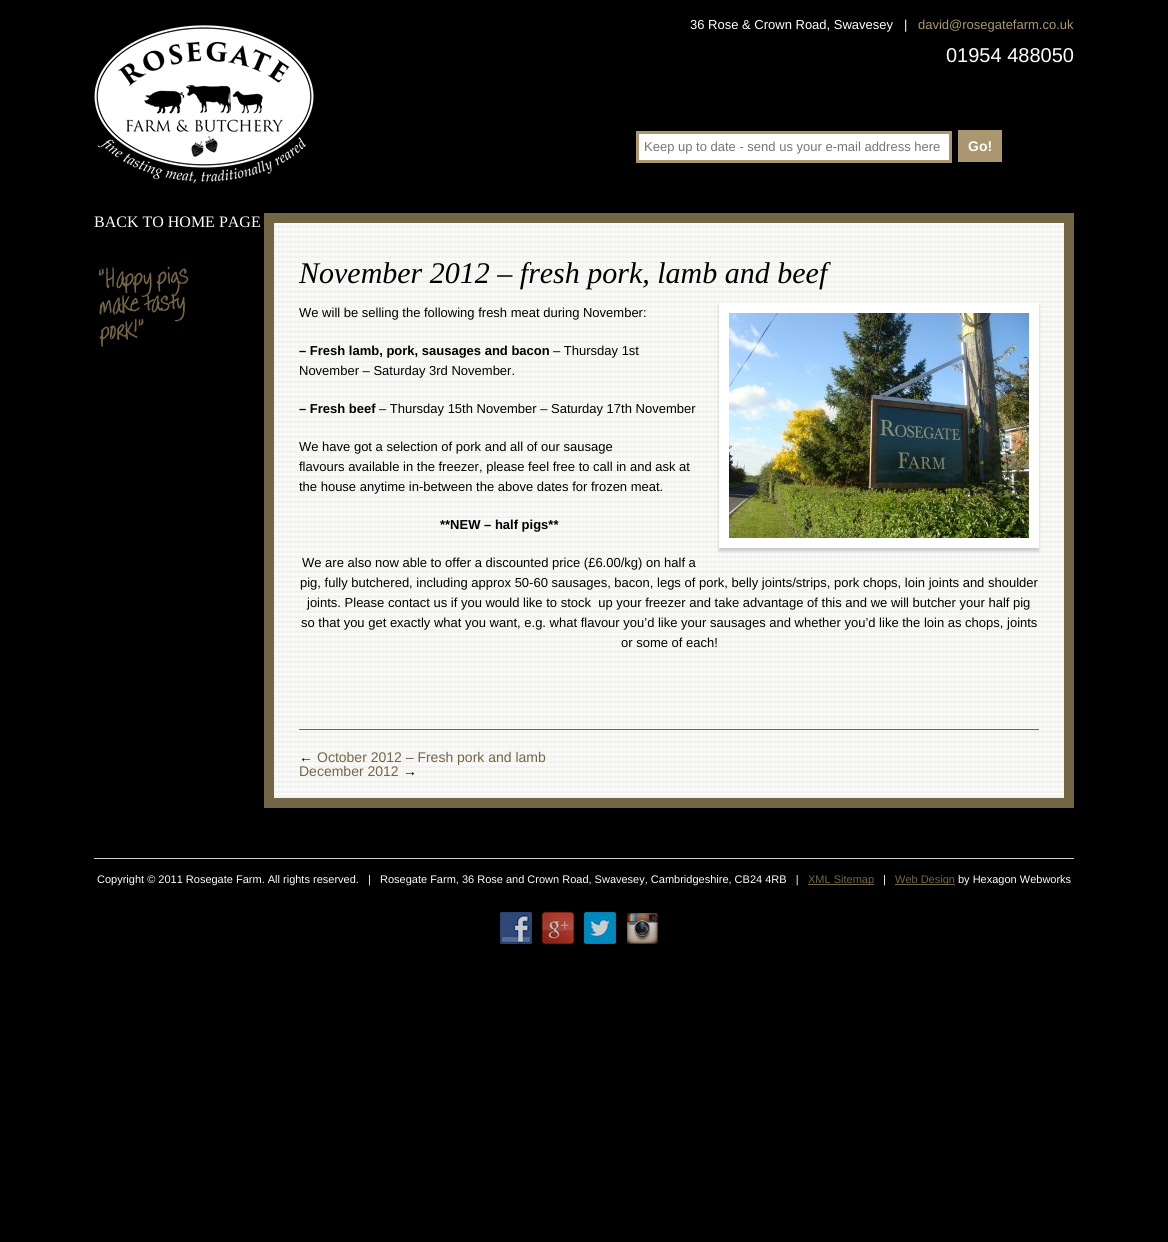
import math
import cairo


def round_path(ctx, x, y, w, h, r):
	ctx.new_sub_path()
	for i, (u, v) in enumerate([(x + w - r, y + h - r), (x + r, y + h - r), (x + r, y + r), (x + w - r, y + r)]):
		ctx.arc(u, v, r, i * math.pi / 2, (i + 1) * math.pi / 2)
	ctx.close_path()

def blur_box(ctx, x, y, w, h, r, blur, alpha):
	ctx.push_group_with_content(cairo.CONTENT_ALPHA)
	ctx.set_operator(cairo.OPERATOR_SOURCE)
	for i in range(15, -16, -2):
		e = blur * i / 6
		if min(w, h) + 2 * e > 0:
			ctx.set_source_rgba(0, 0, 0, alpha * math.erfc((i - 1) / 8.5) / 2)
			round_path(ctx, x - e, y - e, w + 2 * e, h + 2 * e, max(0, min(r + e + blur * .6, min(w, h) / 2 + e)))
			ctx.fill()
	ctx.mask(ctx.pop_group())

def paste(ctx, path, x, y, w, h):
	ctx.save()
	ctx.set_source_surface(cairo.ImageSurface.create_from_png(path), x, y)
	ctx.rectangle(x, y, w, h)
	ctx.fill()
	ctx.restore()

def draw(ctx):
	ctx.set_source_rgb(0, 0, 0)
	ctx.paint()
	paste(ctx, 'media/1.png', 94, 25, 220, 159)
	ctx.select_font_face('Liberation Sans')
	ctx.set_font_size(13)
	ctx.set_source_rgb(1, 1, 1)
	ctx.move_to(690, 29)
	ctx.show_text('36 Rose & Crown Road, Swavesey   |')
	ctx.set_source_rgb(0.667, 0.592, 0.435)
	ctx.move_to(918, 29)
	ctx.show_text('david@rosegatefarm.co.uk')
	ctx.set_font_size(20)
	ctx.set_source_rgb(1, 1, 1)
	ctx.move_to(946, 62)
	ctx.show_text('01954 488050')
	ctx.rectangle(637.5, 132.5, 313, 29)
	ctx.fill_preserve()
	ctx.set_source_rgb(0.667, 0.592, 0.435)
	ctx.set_line_width(3)
	ctx.stroke()
	ctx.set_font_size(13)
	ctx.set_source_rgb(0.459, 0.459, 0.459)
	ctx.move_to(644, 151)
	ctx.show_text('Keep up to date - send us your e-mail address here')
	ctx.set_source_rgb(0.667, 0.592, 0.435)
	ctx.rectangle(958, 130, 44, 32)
	ctx.fill()
	ctx.select_font_face('Liberation Sans', cairo.FONT_SLANT_NORMAL, cairo.FONT_WEIGHT_BOLD)
	ctx.set_font_size(14)
	ctx.set_source_rgb(1, 1, 1)
	ctx.move_to(968, 151)
	ctx.show_text('Go!')
	ctx.select_font_face('Liberation Serif')
	ctx.set_font_size(16)
	ctx.move_to(94, 227)
	ctx.show_text('BACK TO HOME PAGE')
	paste(ctx, 'media/2.png', 99, 266, 90, 81)
	paste(ctx, 'media/3.png', 274, 223, 790, 575)
	ctx.rectangle(269, 218, 800, 585)
	ctx.set_source_rgb(0.455, 0.396, 0.271)
	ctx.set_line_width(10)
	ctx.stroke()
	ctx.rectangle(299, 729, 740, 1)
	ctx.fill()
	ctx.select_font_face('Liberation Serif', cairo.FONT_SLANT_ITALIC)
	ctx.set_font_size(30)
	ctx.set_source_rgb(0, 0, 0)
	ctx.move_to(299, 283)
	ctx.show_text('November 2012 – fresh pork, lamb and beef')
	ctx.select_font_face('Liberation Sans')
	ctx.set_font_size(13)
	ctx.move_to(299, 317)
	ctx.show_text('We will be selling the following fresh meat during November:')
	ctx.set_source_rgb(0, 0, 0)
	blur_box(ctx, 719, 306, 320, 245, 0, 1.5, 0.2)
	ctx.rectangle(724, 308, 310, 235)
	ctx.set_source_rgb(1, 1, 1)
	ctx.stroke()
	paste(ctx, 'media/4.png', 729, 313, 300, 225)
	ctx.select_font_face('Liberation Sans', cairo.FONT_SLANT_NORMAL, cairo.FONT_WEIGHT_BOLD)
	ctx.set_source_rgb(0, 0, 0)
	ctx.move_to(299, 355)
	ctx.show_text('– Fresh lamb, pork, sausages and bacon')
	ctx.select_font_face('Liberation Sans')
	ctx.move_to(553, 355)
	ctx.show_text('– Thursday 1st')
	ctx.move_to(299, 375)
	ctx.show_text('November – Saturday 3rd November.')
	ctx.select_font_face('Liberation Sans', cairo.FONT_SLANT_NORMAL, cairo.FONT_WEIGHT_BOLD)
	ctx.move_to(299, 413)
	ctx.show_text('– Fresh beef')
	ctx.select_font_face('Liberation Sans')
	for x, y, s in [
		(379, 413, '– Thursday 15th November – Saturday 17th November'),
		(299, 451, 'We have got a selection of pork and all of our sausage'),
		(299, 471, 'flavours available in the freezer, please feel free to call in and ask at'),
		(299, 491, 'the house anytime in-between the above dates for frozen meat.'),
	]:
		ctx.move_to(x, y)
		ctx.show_text(s)
	ctx.select_font_face('Liberation Sans', cairo.FONT_SLANT_NORMAL, cairo.FONT_WEIGHT_BOLD)
	ctx.move_to(440, 529)
	ctx.show_text('**NEW – half pigs**')
	ctx.select_font_face('Liberation Sans')
	for x, y, s in [
		(302, 567, 'We are also now able to offer a discounted price (£6.00/kg) on half a'),
		(300, 587, 'pig, fully butchered, including approx 50-60 sausages, bacon, legs of pork, belly joints/strips, pork chops, loin joints and shoulder'),
		(307, 607, 'joints. Please contact us if you would like to stock  up your freezer and take advantage of this and we will butcher your half pig'),
		(301, 627, 'so that you get exactly what you want, e.g. what flavour you’d like your sausages and whether you’d like the loin as chops, joints'),
		(621, 647, 'or some of each!'),
	]:
		ctx.move_to(x, y)
		ctx.show_text(s)
	ctx.set_font_size(14)
	ctx.move_to(299, 762)
	ctx.show_text('←')
	ctx.set_source_rgb(0.455, 0.396, 0.271)
	ctx.move_to(317, 762)
	ctx.show_text('October 2012 – Fresh pork and lamb')
	ctx.move_to(299, 776)
	ctx.show_text('December 2012')
	ctx.set_source_rgb(0, 0, 0)
	ctx.move_to(403, 776)
	ctx.show_text('→')
	ctx.set_source_rgb(0.8, 0.8, 0.8)
	ctx.rectangle(94, 858, 980, 1)
	ctx.fill()
	ctx.set_font_size(11)
	ctx.set_source_rgb(1, 1, 1)
	ctx.move_to(97, 883)
	ctx.show_text('Copyright © 2011 Rosegate Farm. All rights reserved.   |')
	ctx.move_to(380, 883)
	ctx.show_text('Rosegate Farm, 36 Rose and Crown Road, Swavesey, Cambridgeshire, CB24 4RB   |')
	ctx.set_source_rgb(0.455, 0.396, 0.271)
	ctx.rectangle(808, 884, 66, 1)
	ctx.fill()
	ctx.move_to(808, 883)
	ctx.show_text('XML Sitemap')
	ctx.set_source_rgb(1, 1, 1)
	ctx.move_to(883, 883)
	ctx.show_text('|')
	ctx.set_source_rgb(0.455, 0.396, 0.271)
	ctx.rectangle(895, 884, 60, 1)
	ctx.fill()
	ctx.move_to(895, 883)
	ctx.show_text('Web Design')
	ctx.set_source_rgb(1, 1, 1)
	ctx.move_to(958, 883)
	ctx.show_text('by Hexagon Webworks')
	paste(ctx, 'media/5.png', 500, 912, 32, 32)
	paste(ctx, 'media/6.png', 542, 912, 32, 32)
	paste(ctx, 'media/7.png', 584, 912, 32, 32)
	paste(ctx, 'media/8.png', 627, 913, 31, 31)


surface = cairo.ImageSurface(cairo.FORMAT_RGB24, 1168, 1242)
ctx = cairo.Context(surface)
options = cairo.FontOptions()
options.set_hint_metrics(cairo.HINT_METRICS_OFF)
options.set_hint_style(cairo.HINT_STYLE_NONE)
ctx.set_font_options(options)
ctx.set_miter_limit(4)
draw(ctx)
surface.write_to_png('image.png')
